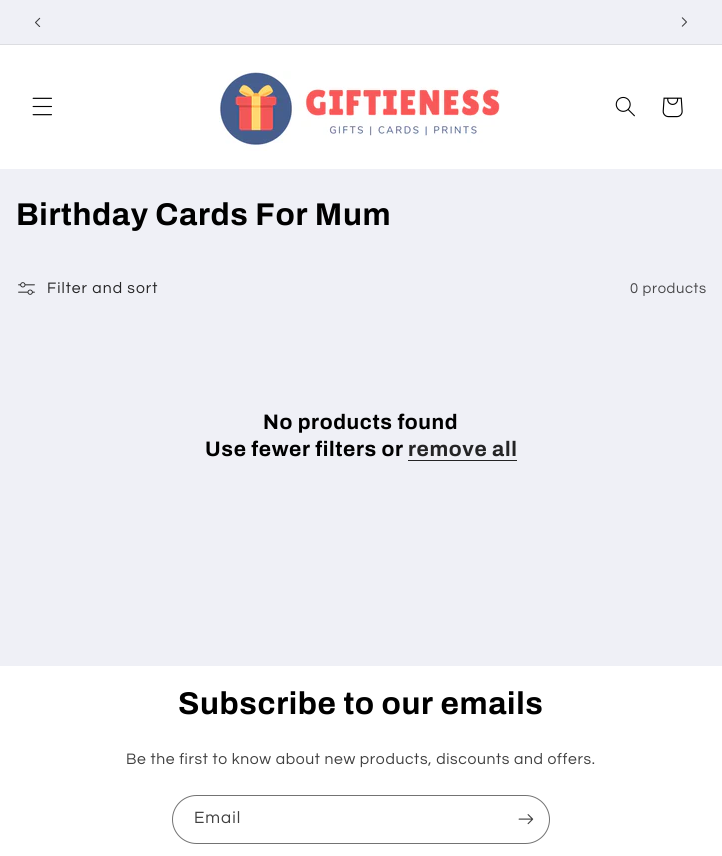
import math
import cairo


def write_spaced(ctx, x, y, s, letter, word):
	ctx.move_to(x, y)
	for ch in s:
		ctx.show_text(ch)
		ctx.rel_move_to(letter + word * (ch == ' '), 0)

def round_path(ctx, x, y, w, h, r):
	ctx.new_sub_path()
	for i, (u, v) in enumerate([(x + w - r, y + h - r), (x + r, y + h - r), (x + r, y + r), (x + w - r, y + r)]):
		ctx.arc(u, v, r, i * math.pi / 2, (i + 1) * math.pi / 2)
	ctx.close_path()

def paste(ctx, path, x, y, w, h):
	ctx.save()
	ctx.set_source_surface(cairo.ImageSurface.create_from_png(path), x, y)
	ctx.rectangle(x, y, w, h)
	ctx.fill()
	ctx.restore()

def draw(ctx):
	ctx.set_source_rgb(0.937, 0.941, 0.961)
	ctx.paint()
	ctx.set_source_rgb(0.863, 0.867, 0.882)
	ctx.rectangle(0, 44, 722, 1)
	ctx.fill()
	paste(ctx, 'media/1.png', 35, 17, 6, 10)
	paste(ctx, 'media/2.png', 681, 17, 6, 10)
	ctx.set_source_rgb(1, 1, 1)
	ctx.rectangle(0, 45, 722, 124)
	ctx.fill()
	paste(ctx, 'media/3.png', 32, 97, 20, 19)
	paste(ctx, 'media/4.png', 219, 71, 281, 80)
	paste(ctx, 'media/5.png', 615, 96, 20, 21)
	paste(ctx, 'media/6.png', 662, 97, 21, 21)
	ctx.select_font_face('Archivo', cairo.FONT_SLANT_NORMAL, cairo.FONT_WEIGHT_BOLD)
	ctx.set_font_size(31.5)
	ctx.set_source_rgb(0, 0, 0)
	write_spaced(ctx, 16, 225, 'Birthday Cards For Mum', 0.63, 0)
	paste(ctx, 'media/7.png', 18, 282, 17, 13)
	ctx.select_font_face('Questrial')
	ctx.set_font_size(15.75)
	ctx.set_source_rgb(0.141, 0.141, 0.145)
	write_spaced(ctx, 47, 293, 'Filter and sort', 1, 0)
	ctx.set_font_size(14.75)
	ctx.set_source_rgb(0.282, 0.282, 0.29)
	write_spaced(ctx, 630, 293, '0 products', 0.63, 0)
	ctx.select_font_face('Archivo', cairo.FONT_SLANT_NORMAL, cairo.FONT_WEIGHT_BOLD)
	ctx.set_font_size(21)
	ctx.set_source_rgb(0, 0, 0)
	write_spaced(ctx, 263, 429, 'No products found', 0.63, 0)
	write_spaced(ctx, 205, 456, 'Use fewer filters or', 0.63, 0)
	ctx.set_source_rgb(0.141, 0.141, 0.145)
	write_spaced(ctx, 408, 456, 'remove all', 0.63, 0)
	ctx.rectangle(408, 460, 109, 1)
	ctx.fill()
	ctx.set_source_rgb(1, 1, 1)
	ctx.rectangle(0, 666, 722, 190)
	ctx.fill()
	ctx.set_font_size(31.5)
	ctx.set_source_rgb(0, 0, 0)
	write_spaced(ctx, 178, 714, 'Subscribe to our emails', 0.63, 0)
	ctx.select_font_face('Questrial')
	ctx.set_font_size(15.75)
	ctx.set_source_rgb(0.251, 0.251, 0.251)
	write_spaced(ctx, 126, 764, 'Be the first to know about new products, discounts and offers.', 0.63, 0)
	round_path(ctx, 172.5, 795.5, 377, 48, 24)
	ctx.set_source_rgb(0.451, 0.451, 0.451)
	ctx.set_line_width(1)
	ctx.stroke()
	ctx.set_font_size(17)
	ctx.set_source_rgb(0.251, 0.251, 0.251)
	write_spaced(ctx, 194, 823, 'Email', 1, 0)
	paste(ctx, 'media/8.png', 518, 814, 16, 11)


surface = cairo.ImageSurface(cairo.FORMAT_RGB24, 722, 856)
ctx = cairo.Context(surface)
options = cairo.FontOptions()
options.set_hint_metrics(cairo.HINT_METRICS_OFF)
options.set_hint_style(cairo.HINT_STYLE_NONE)
ctx.set_font_options(options)
ctx.set_miter_limit(4)
draw(ctx)
surface.write_to_png('image.png')
